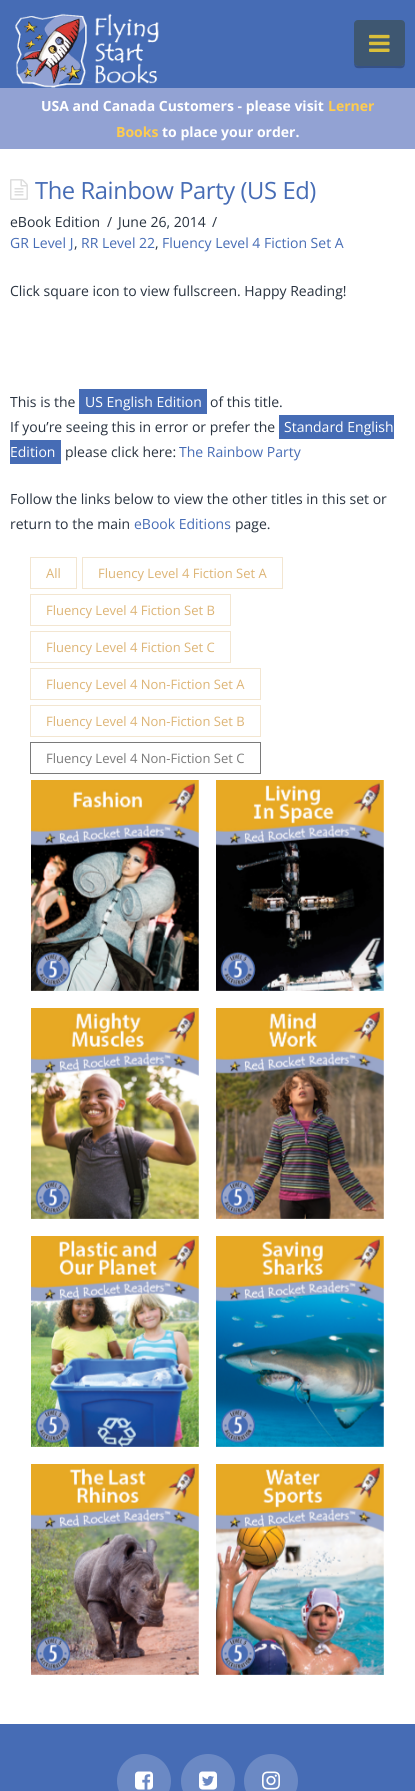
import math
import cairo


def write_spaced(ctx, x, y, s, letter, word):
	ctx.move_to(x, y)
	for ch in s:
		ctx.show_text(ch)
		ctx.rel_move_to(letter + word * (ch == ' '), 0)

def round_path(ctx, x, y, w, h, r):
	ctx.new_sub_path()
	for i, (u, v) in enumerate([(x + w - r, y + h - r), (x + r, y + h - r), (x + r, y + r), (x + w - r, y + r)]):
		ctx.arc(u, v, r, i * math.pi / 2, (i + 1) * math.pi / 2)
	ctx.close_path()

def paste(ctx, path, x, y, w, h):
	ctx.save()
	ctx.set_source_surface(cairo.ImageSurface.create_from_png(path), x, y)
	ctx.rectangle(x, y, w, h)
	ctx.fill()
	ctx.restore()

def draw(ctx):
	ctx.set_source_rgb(1, 1, 1)
	ctx.paint()
	ctx.set_source_rgb(0.275, 0.424, 0.71)
	ctx.rectangle(0, 0, 415, 88)
	ctx.fill()
	paste(ctx, 'media/1.png', 15, 13, 144, 75)
	ctx.set_source_rgb(0.208, 0.318, 0.533)
	ctx.new_path()
	ctx.move_to(354, 62)
	ctx.curve_to(354, 70, 358, 68, 365, 68)
	ctx.line_to(394, 68)
	ctx.curve_to(401, 68, 405, 70, 405, 62)
	ctx.curve_to(405, 64, 403, 66, 401, 66)
	ctx.line_to(358, 66)
	ctx.curve_to(356, 66, 354, 64, 354, 62)
	ctx.close_path()
	ctx.fill()
	ctx.set_source_rgb(0.243, 0.341, 0.443)
	round_path(ctx, 354, 20, 51, 46, 4)
	ctx.fill()
	paste(ctx, 'media/2.png', 369, 34, 21, 18)
	ctx.set_source_rgb(0.573, 0.635, 0.827)
	ctx.rectangle(0, 88, 415, 61)
	ctx.fill()
	ctx.select_font_face('Open Sans', cairo.FONT_SLANT_NORMAL, cairo.FONT_WEIGHT_BOLD)
	ctx.set_font_size(14)
	ctx.set_source_rgb(1, 1, 1)
	ctx.move_to(41, 111)
	ctx.show_text('USA and Canada Customers - please visit')
	ctx.set_source_rgb(1, 0.8, 0.306)
	ctx.move_to(328, 111)
	ctx.show_text('Lerner')
	ctx.move_to(116, 137)
	ctx.show_text('Books')
	ctx.set_source_rgb(1, 1, 1)
	ctx.move_to(162, 137)
	ctx.show_text('to place your order.')
	paste(ctx, 'media/3.png', 10, 179, 18, 21)
	ctx.select_font_face('Open Sans')
	ctx.set_font_size(23.75)
	ctx.set_source_rgb(0.275, 0.424, 0.71)
	write_spaced(ctx, 35, 199, 'The Rainbow Party (US Ed)', -0.4, 0)
	ctx.set_font_size(14)
	ctx.set_source_rgb(0.157, 0.196, 0.247)
	for x, y, s in [
		(10, 227, 'eBook Edition'),
		(107, 227, '/'),
		(118, 227, 'June 26, 2014'),
		(212, 227, '/'),
	]:
		ctx.move_to(x, y)
		ctx.show_text(s)
	ctx.set_source_rgb(0.275, 0.424, 0.71)
	ctx.move_to(10, 248)
	ctx.show_text('GR Level J')
	ctx.set_source_rgb(0.157, 0.196, 0.247)
	ctx.move_to(74, 248)
	ctx.show_text(',')
	ctx.set_source_rgb(0.275, 0.424, 0.71)
	ctx.move_to(81, 248)
	ctx.show_text('RR Level 22')
	ctx.set_source_rgb(0.157, 0.196, 0.247)
	ctx.move_to(155, 248)
	ctx.show_text(',')
	ctx.set_source_rgb(0.275, 0.424, 0.71)
	ctx.move_to(162, 248)
	ctx.show_text('Fluency Level 4 Fiction Set A')
	ctx.set_source_rgb(0.157, 0.196, 0.247)
	ctx.move_to(10, 296)
	ctx.show_text('Click square icon to view fullscreen. Happy Reading!')
	ctx.move_to(10, 407)
	ctx.show_text('This is the')
	ctx.set_source_rgb(0.275, 0.424, 0.71)
	ctx.rectangle(79, 389, 128, 25)
	ctx.fill()
	ctx.set_source_rgb(1, 1, 1)
	ctx.move_to(85, 407)
	ctx.show_text('US English Edition')
	ctx.set_source_rgb(0.157, 0.196, 0.247)
	ctx.move_to(210, 407)
	ctx.show_text('of this title.')
	ctx.move_to(10, 432)
	ctx.show_text('If you’re seeing this in error or prefer the')
	ctx.set_source_rgb(0.275, 0.424, 0.71)
	ctx.rectangle(279, 415, 115, 24)
	ctx.fill()
	ctx.set_source_rgb(1, 1, 1)
	ctx.move_to(284, 432)
	ctx.show_text('Standard English')
	ctx.set_source_rgb(0.275, 0.424, 0.71)
	ctx.rectangle(10, 440, 51, 24)
	ctx.fill()
	ctx.set_source_rgb(1, 1, 1)
	ctx.move_to(10, 457)
	ctx.show_text('Edition')
	ctx.set_source_rgb(0.157, 0.196, 0.247)
	ctx.move_to(65, 457)
	ctx.show_text('please click here:')
	ctx.set_source_rgb(0.275, 0.424, 0.71)
	ctx.move_to(179, 457)
	ctx.show_text('The Rainbow Party')
	ctx.set_source_rgb(0.157, 0.196, 0.247)
	ctx.move_to(10, 504)
	ctx.show_text('Follow the links below to view the other titles in this set or')
	ctx.move_to(10, 529)
	ctx.show_text('return to the main')
	ctx.set_source_rgb(0.275, 0.424, 0.71)
	ctx.move_to(134, 529)
	ctx.show_text('eBook Editions')
	ctx.set_source_rgb(0.157, 0.196, 0.247)
	ctx.move_to(235, 529)
	ctx.show_text('page.')
	ctx.rectangle(30.5, 557.5, 46, 31)
	ctx.set_source_rgb(0.953, 0.902, 0.82)
	ctx.set_line_width(1)
	ctx.stroke()
	ctx.set_font_size(13)
	ctx.set_source_rgb(0.867, 0.706, 0.459)
	ctx.move_to(46, 578)
	ctx.show_text('All')
	ctx.rectangle(82.5, 557.5, 200, 31)
	ctx.set_source_rgb(0.953, 0.902, 0.82)
	ctx.stroke()
	ctx.set_source_rgb(0.867, 0.706, 0.459)
	ctx.move_to(98, 578)
	ctx.show_text('Fluency Level 4 Fiction Set A')
	ctx.rectangle(30.5, 594.5, 200, 31)
	ctx.set_source_rgb(0.953, 0.902, 0.82)
	ctx.stroke()
	ctx.set_source_rgb(0.867, 0.706, 0.459)
	ctx.move_to(46, 615)
	ctx.show_text('Fluency Level 4 Fiction Set B')
	ctx.rectangle(30.5, 631.5, 200, 31)
	ctx.set_source_rgb(0.953, 0.902, 0.82)
	ctx.stroke()
	ctx.set_source_rgb(0.867, 0.706, 0.459)
	ctx.move_to(46, 652)
	ctx.show_text('Fluency Level 4 Fiction Set C')
	ctx.rectangle(30.5, 668.5, 230, 31)
	ctx.set_source_rgb(0.953, 0.902, 0.82)
	ctx.stroke()
	ctx.set_source_rgb(0.867, 0.706, 0.459)
	ctx.move_to(46, 689)
	ctx.show_text('Fluency Level 4 Non-Fiction Set A')
	ctx.rectangle(30.5, 705.5, 230, 31)
	ctx.set_source_rgb(0.953, 0.902, 0.82)
	ctx.stroke()
	ctx.set_source_rgb(0.867, 0.706, 0.459)
	ctx.move_to(46, 726)
	ctx.show_text('Fluency Level 4 Non-Fiction Set B')
	ctx.rectangle(30.5, 742.5, 230, 31)
	ctx.set_source_rgb(0.478, 0.478, 0.478)
	ctx.stroke()
	ctx.move_to(46, 763)
	ctx.show_text('Fluency Level 4 Non-Fiction Set C')
	paste(ctx, 'media/4.png', 31, 780, 168, 211)
	paste(ctx, 'media/5.png', 216, 780, 168, 211)
	paste(ctx, 'media/6.png', 31, 1008, 168, 211)
	paste(ctx, 'media/7.png', 216, 1008, 168, 211)
	paste(ctx, 'media/8.png', 31, 1236, 168, 211)
	paste(ctx, 'media/9.png', 216, 1236, 168, 211)
	paste(ctx, 'media/10.png', 31, 1464, 168, 211)
	paste(ctx, 'media/11.png', 216, 1464, 168, 211)
	ctx.set_source_rgb(0.275, 0.424, 0.71)
	ctx.rectangle(0, 1724, 415, 67)
	ctx.fill()
	ctx.set_source_rgb(0.42, 0.537, 0.769)
	ctx.arc(144, 1781, 27, 0, 2 * math.pi)
	ctx.fill()
	paste(ctx, 'media/12.png', 135, 1771, 18, 19)
	ctx.arc(208, 1781, 27, 0, 2 * math.pi)
	ctx.fill()
	paste(ctx, 'media/13.png', 199, 1771, 18, 19)
	ctx.arc(271, 1781, 27, 0, 2 * math.pi)
	ctx.fill()
	paste(ctx, 'media/14.png', 262, 1771, 18, 19)


surface = cairo.ImageSurface(cairo.FORMAT_RGB24, 415, 1791)
ctx = cairo.Context(surface)
options = cairo.FontOptions()
options.set_hint_metrics(cairo.HINT_METRICS_OFF)
options.set_hint_style(cairo.HINT_STYLE_NONE)
ctx.set_font_options(options)
ctx.set_miter_limit(4)
draw(ctx)
surface.write_to_png('image.png')
